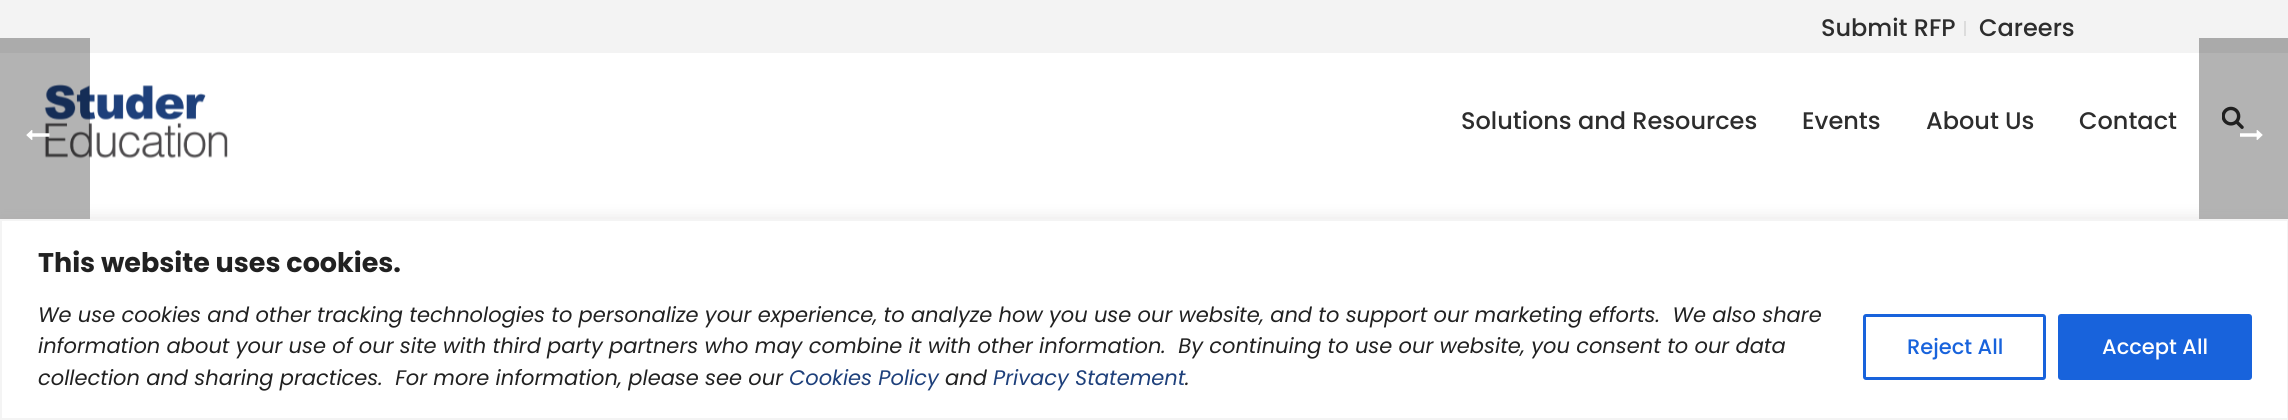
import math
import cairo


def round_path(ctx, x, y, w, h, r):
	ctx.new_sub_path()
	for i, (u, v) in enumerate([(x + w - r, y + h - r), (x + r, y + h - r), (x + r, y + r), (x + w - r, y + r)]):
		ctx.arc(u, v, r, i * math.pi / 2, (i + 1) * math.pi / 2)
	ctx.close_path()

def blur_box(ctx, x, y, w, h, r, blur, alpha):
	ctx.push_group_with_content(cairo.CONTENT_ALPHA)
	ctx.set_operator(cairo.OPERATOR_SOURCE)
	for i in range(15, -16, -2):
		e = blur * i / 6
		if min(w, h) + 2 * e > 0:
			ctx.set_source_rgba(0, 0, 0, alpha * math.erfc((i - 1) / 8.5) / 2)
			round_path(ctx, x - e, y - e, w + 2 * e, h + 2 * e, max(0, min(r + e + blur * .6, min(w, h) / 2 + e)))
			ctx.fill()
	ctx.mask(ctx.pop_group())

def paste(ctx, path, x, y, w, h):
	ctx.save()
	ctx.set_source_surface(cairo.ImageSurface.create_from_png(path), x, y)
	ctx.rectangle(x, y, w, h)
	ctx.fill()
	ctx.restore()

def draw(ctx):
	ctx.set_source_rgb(1, 1, 1)
	ctx.paint()
	ctx.set_source_rgb(0.953, 0.953, 0.953)
	ctx.rectangle(0, 0, 2288, 53)
	ctx.fill()
	paste(ctx, 'media/2.png', 44, 84, 184, 75)
	ctx.set_source_rgba(0, 0, 0, 0.3)
	ctx.rectangle(0, 38, 90, 181)
	ctx.fill()
	paste(ctx, 'media/1.png', 26, 130, 24, 10)
	ctx.set_source_rgb(0.667, 0.667, 0.667)
	ctx.rectangle(2199, 38, 89, 15)
	ctx.fill()
	ctx.set_source_rgb(0.863, 0.863, 0.863)
	ctx.rectangle(1964, 21, 2, 15)
	ctx.fill()
	ctx.select_font_face('Poppins Medium')
	ctx.set_font_size(24)
	ctx.set_source_rgb(0.176, 0.176, 0.176)
	for x, y, s in [
		(1821, 36, 'Submit RFP'),
		(1979, 36, 'Careers'),
		(1461, 129, 'Solutions and Resources'),
		(1802, 129, 'Events'),
		(1926, 129, 'About Us'),
		(2079, 129, 'Contact'),
	]:
		ctx.move_to(x, y)
		ctx.show_text(s)
	ctx.set_source_rgb(0.702, 0.702, 0.702)
	ctx.rectangle(2199, 53, 89, 166)
	ctx.fill()
	paste(ctx, 'media/3.png', 2222, 106, 22, 23)
	paste(ctx, 'media/4.png', 2240, 130, 23, 10)
	ctx.set_source_rgb(0.675, 0.671, 0.671)
	blur_box(ctx, 0, 218, 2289, 201, 0, 7.5, 0.3)
	ctx.set_source_rgb(1, 1, 1)
	ctx.rectangle(1, 220, 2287, 199)
	ctx.fill_preserve()
	ctx.set_source_rgb(0.957, 0.957, 0.957)
	ctx.stroke()
	ctx.select_font_face('Poppins', cairo.FONT_SLANT_NORMAL, cairo.FONT_WEIGHT_BOLD)
	ctx.set_font_size(27)
	ctx.set_source_rgb(0.129, 0.129, 0.129)
	ctx.move_to(38, 272)
	ctx.show_text('This website uses cookies.')
	ctx.select_font_face('Poppins', cairo.FONT_SLANT_ITALIC)
	ctx.set_font_size(21)
	for x, y, s in [
		(38, 322, 'We use cookies and other tracking technologies to personalize your experience, to analyze how you use our website, and to support our marketing efforts.  We also share'),
		(38, 353, 'information about your use of our site with third party partners who may combine it with other information.  By continuing to use our website, you consent to our data'),
		(38, 385, 'collection and sharing practices.  For more information, please see our'),
	]:
		ctx.move_to(x, y)
		ctx.show_text(s)
	ctx.set_source_rgb(0.118, 0.251, 0.482)
	ctx.move_to(789, 385)
	ctx.show_text('Cookies Policy')
	ctx.set_source_rgb(0.129, 0.129, 0.129)
	ctx.move_to(945, 385)
	ctx.show_text('and')
	ctx.set_source_rgb(0.118, 0.251, 0.482)
	ctx.move_to(993, 385)
	ctx.show_text('Privacy Statement')
	ctx.set_source_rgb(0.129, 0.129, 0.129)
	ctx.move_to(1185, 385)
	ctx.show_text('.')
	round_path(ctx, 1864.5, 315.5, 180, 63, 1.5)
	ctx.set_source_rgb(0.094, 0.388, 0.863)
	ctx.set_line_width(3)
	ctx.stroke()
	ctx.select_font_face('Poppins Medium')
	ctx.move_to(1907, 354)
	ctx.show_text('Reject All')
	round_path(ctx, 2059.5, 315.5, 191, 63, 1.5)
	ctx.fill_preserve()
	ctx.stroke()
	ctx.set_source_rgb(1, 1, 1)
	ctx.move_to(2102, 354)
	ctx.show_text('Accept All')


surface = cairo.ImageSurface(cairo.FORMAT_RGB24, 2288, 420)
ctx = cairo.Context(surface)
options = cairo.FontOptions()
options.set_hint_metrics(cairo.HINT_METRICS_OFF)
options.set_hint_style(cairo.HINT_STYLE_NONE)
ctx.set_font_options(options)
ctx.set_miter_limit(4)
draw(ctx)
surface.write_to_png('image.png')
